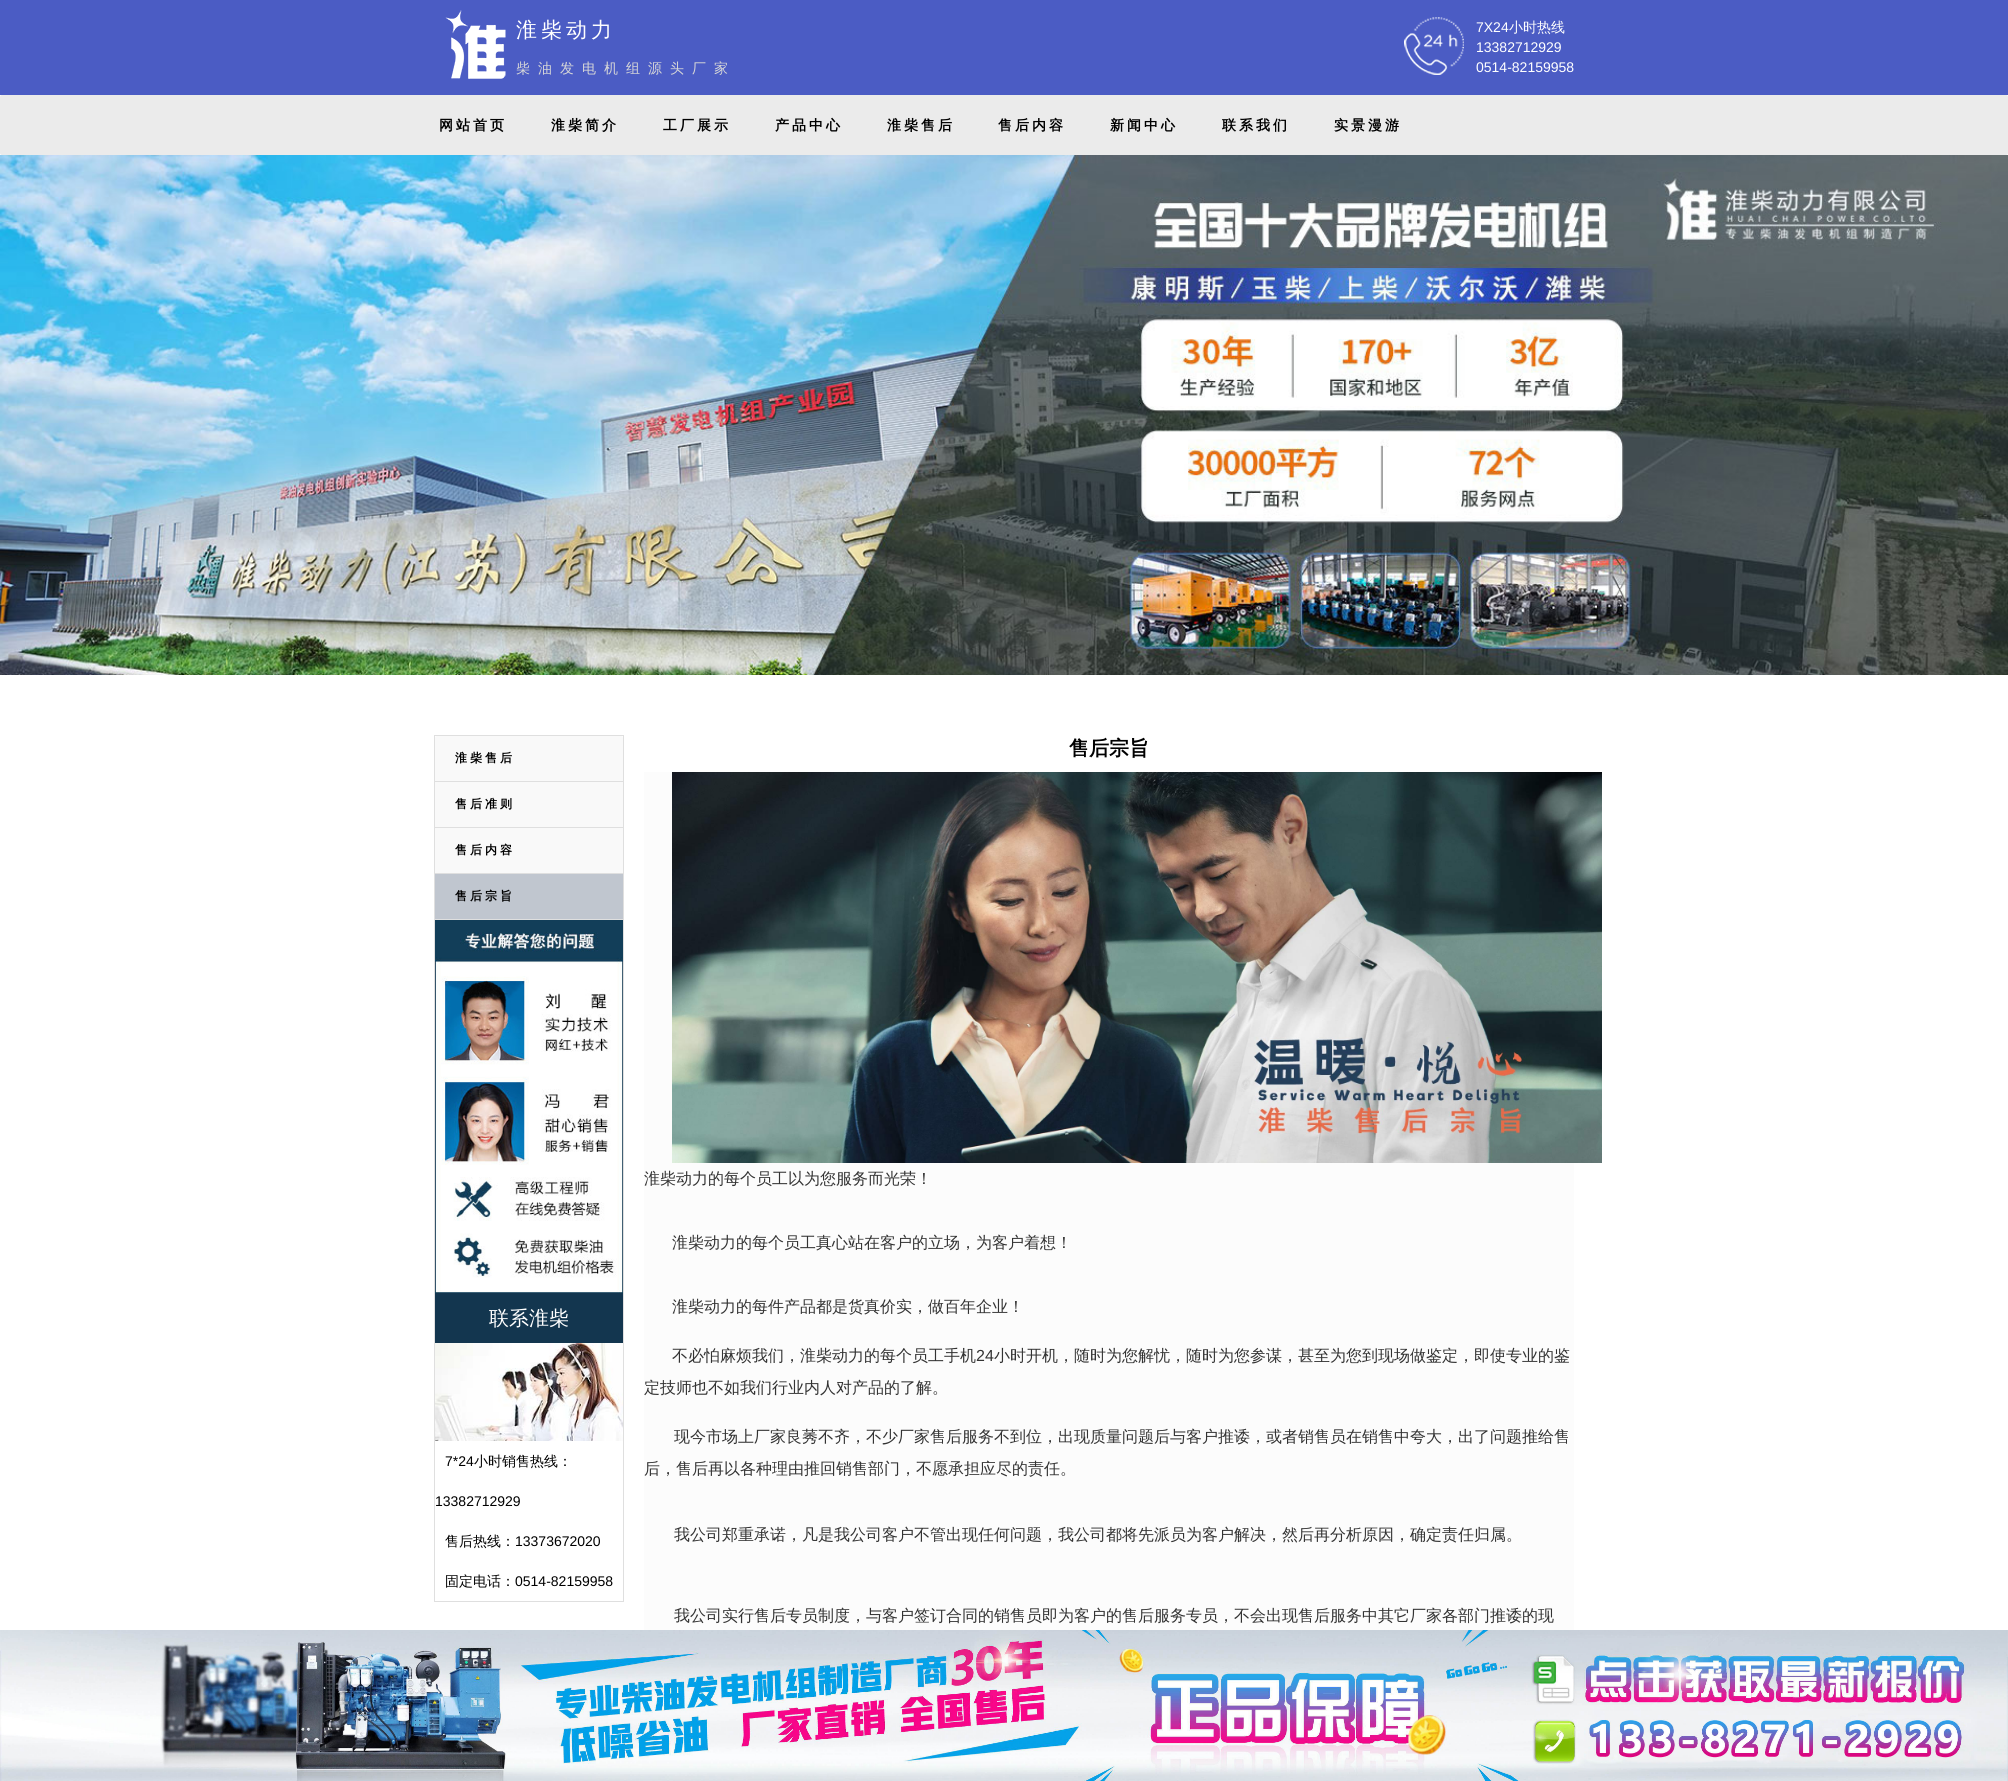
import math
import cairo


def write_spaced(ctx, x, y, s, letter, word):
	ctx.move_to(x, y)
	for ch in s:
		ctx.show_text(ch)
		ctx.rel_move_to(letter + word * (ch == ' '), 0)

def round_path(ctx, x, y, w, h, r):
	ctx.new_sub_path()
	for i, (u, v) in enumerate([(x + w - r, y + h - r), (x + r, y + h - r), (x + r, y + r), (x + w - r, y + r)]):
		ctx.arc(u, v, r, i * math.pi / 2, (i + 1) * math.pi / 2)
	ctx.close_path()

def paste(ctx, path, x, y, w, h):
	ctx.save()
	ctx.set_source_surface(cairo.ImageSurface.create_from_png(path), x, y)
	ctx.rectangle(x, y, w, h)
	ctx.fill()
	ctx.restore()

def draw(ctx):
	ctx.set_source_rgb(1, 1, 1)
	ctx.paint()
	ctx.set_source_rgb(0.294, 0.361, 0.769)
	ctx.rectangle(0, 0, 2008, 95)
	ctx.fill()
	paste(ctx, 'media/1.png', 445, 10, 61, 69)
	ctx.select_font_face('WenQuanYi Zen Hei Medium')
	ctx.set_font_size(21)
	ctx.set_source_rgb(1, 1, 1)
	write_spaced(ctx, 516, 37, '淮柴动力', 4, 0)
	ctx.set_font_size(14)
	ctx.set_source_rgb(0.843, 0.843, 0.843)
	write_spaced(ctx, 516, 73, '柴油发电机组源头厂家', 8, 0)
	paste(ctx, 'media/2.png', 1404, 17, 60, 58)
	ctx.select_font_face('Liberation Sans')
	ctx.set_source_rgb(1, 1, 1)
	ctx.move_to(1476, 32)
	ctx.show_text('7X24')
	ctx.select_font_face('WenQuanYi Zen Hei Medium')
	ctx.move_to(1509, 32)
	ctx.show_text('小时热线')
	ctx.select_font_face('Liberation Sans')
	ctx.move_to(1476, 52)
	ctx.show_text('13382712929')
	ctx.move_to(1476, 72)
	ctx.show_text('0514-82159958')
	ctx.set_source_rgb(0.918, 0.918, 0.918)
	round_path(ctx, 0, 95, 2008, 60, 2)
	ctx.fill()
	ctx.select_font_face('WenQuanYi Zen Hei', cairo.FONT_SLANT_NORMAL, cairo.FONT_WEIGHT_BOLD)
	ctx.set_source_rgb(0, 0, 0)
	for x, y, s in [
		(439, 130, '网站首页'),
		(551, 130, '淮柴简介'),
		(663, 130, '工厂展示'),
		(775, 130, '产品中心'),
		(887, 130, '淮柴售后'),
		(998, 130, '售后内容'),
		(1110, 130, '新闻中心'),
		(1222, 130, '联系我们'),
		(1334, 130, '实景漫游'),
	]:
		write_spaced(ctx, x, y, s, 3, 0)
	paste(ctx, 'media/3.png', 0, 155, 2008, 520)
	ctx.rectangle(434.5, 735.5, 189, 866)
	ctx.set_source_rgb(0.875, 0.875, 0.875)
	ctx.set_line_width(1)
	ctx.stroke()
	ctx.set_source_rgb(0.973, 0.973, 0.973)
	round_path(ctx, 435, 736, 188, 184, 2)
	ctx.fill()
	ctx.set_source_rgb(0.875, 0.875, 0.875)
	ctx.rectangle(435, 781, 188, 1)
	ctx.fill()
	ctx.set_font_size(12)
	ctx.set_source_rgb(0, 0, 0)
	write_spaced(ctx, 455, 762, '淮柴售后', 3, 0)
	ctx.set_source_rgb(0.875, 0.875, 0.875)
	ctx.rectangle(435, 827, 188, 1)
	ctx.fill()
	ctx.set_source_rgb(0, 0, 0)
	write_spaced(ctx, 455, 808, '售后准则', 3, 0)
	ctx.set_source_rgb(0.875, 0.875, 0.875)
	ctx.rectangle(435, 873, 188, 1)
	ctx.fill()
	ctx.set_source_rgb(0, 0, 0)
	write_spaced(ctx, 455, 854, '售后内容', 3, 0)
	ctx.set_source_rgb(0.753, 0.776, 0.812)
	ctx.rectangle(435, 874, 188, 45)
	ctx.fill()
	ctx.set_source_rgb(0.875, 0.875, 0.875)
	ctx.rectangle(435, 919, 188, 1)
	ctx.fill()
	ctx.set_source_rgb(0, 0, 0)
	write_spaced(ctx, 455, 900, '售后宗旨', 3, 0)
	paste(ctx, 'media/4.png', 435, 920, 188, 373)
	ctx.set_source_rgb(0.075, 0.212, 0.31)
	ctx.rectangle(435, 1293, 188, 50)
	ctx.fill()
	ctx.select_font_face('WenQuanYi Zen Hei Medium')
	ctx.set_font_size(20)
	ctx.set_source_rgb(1, 1, 1)
	ctx.move_to(489, 1325)
	ctx.show_text('联系淮柴')
	paste(ctx, 'media/5.png', 435, 1343, 188, 98)
	ctx.select_font_face('Liberation Sans')
	ctx.set_font_size(14)
	ctx.set_source_rgb(0, 0, 0)
	ctx.move_to(445, 1466)
	ctx.show_text('7*24')
	ctx.select_font_face('WenQuanYi Zen Hei Medium')
	ctx.move_to(474, 1466)
	ctx.show_text('小时销售热线：')
	ctx.select_font_face('Liberation Sans')
	ctx.move_to(435, 1506)
	ctx.show_text('13382712929')
	ctx.select_font_face('WenQuanYi Zen Hei Medium')
	ctx.move_to(445, 1546)
	ctx.show_text('售后热线：')
	ctx.select_font_face('Liberation Sans')
	ctx.move_to(515, 1546)
	ctx.show_text('13373672020')
	ctx.select_font_face('WenQuanYi Zen Hei Medium')
	ctx.move_to(445, 1586)
	ctx.show_text('固定电话：')
	ctx.select_font_face('Liberation Sans')
	ctx.move_to(515, 1586)
	ctx.show_text('0514-82159958')
	ctx.select_font_face('WenQuanYi Zen Hei', cairo.FONT_SLANT_NORMAL, cairo.FONT_WEIGHT_BOLD)
	ctx.set_font_size(20)
	ctx.move_to(1069, 755)
	ctx.show_text('售后宗旨')
	ctx.set_source_rgb(0.988, 0.988, 0.988)
	ctx.rectangle(644, 772, 930, 858)
	ctx.fill()
	paste(ctx, 'media/6.png', 672, 772, 930, 391)
	ctx.select_font_face('WenQuanYi Zen Hei Medium')
	ctx.set_font_size(16)
	ctx.set_source_rgb(0.2, 0.2, 0.2)
	for x, y, s in [
		(644, 1184, '淮柴动力的每个员工以为您服务而光荣！'),
		(672, 1248, '淮柴动力的每个员工真心站在客户的立场，为客户着想！'),
		(672, 1312, '淮柴动力的每件产品都是货真价实，做百年企业！'),
		(672, 1361, '不必怕麻烦我们，淮柴动力的每个员工手机'),
	]:
		ctx.move_to(x, y)
		ctx.show_text(s)
	ctx.select_font_face('Liberation Sans')
	ctx.move_to(976, 1361)
	ctx.show_text('24')
	ctx.select_font_face('WenQuanYi Zen Hei Medium')
	for x, y, s in [
		(994, 1361, '小时开机，随时为您解忧，随时为您参谋，甚至为您到现场做鉴定，即使专业的鉴'),
		(644, 1393, '定技师也不如我们行业内人对产品的了解。'),
		(674, 1442, '现今市场上厂家良莠不齐，不少厂家售后服务不到位，出现质量问题后与客户推诿，或者销售员在销售中夸大，出了问题推给售'),
		(644, 1474, '后，售后再以各种理由推回销售部门，不愿承担应尽的责任。'),
		(674, 1540, '我公司郑重承诺，凡是我公司客户不管出现任何问题，我公司都将先派员为客户解决，然后再分析原因，确定责任归属。'),
		(674, 1621, '我公司实行售后专员制度，与客户签订合同的销售员即为客户的售后服务专员，不会出现售后服务中其它厂家各部门推诿的现'),
	]:
		ctx.move_to(x, y)
		ctx.show_text(s)
	paste(ctx, 'media/7.png', 0, 1630, 2008, 151)


surface = cairo.ImageSurface(cairo.FORMAT_RGB24, 2008, 1781)
ctx = cairo.Context(surface)
options = cairo.FontOptions()
options.set_hint_metrics(cairo.HINT_METRICS_OFF)
options.set_hint_style(cairo.HINT_STYLE_NONE)
ctx.set_font_options(options)
ctx.set_miter_limit(4)
draw(ctx)
surface.write_to_png('image.png')
